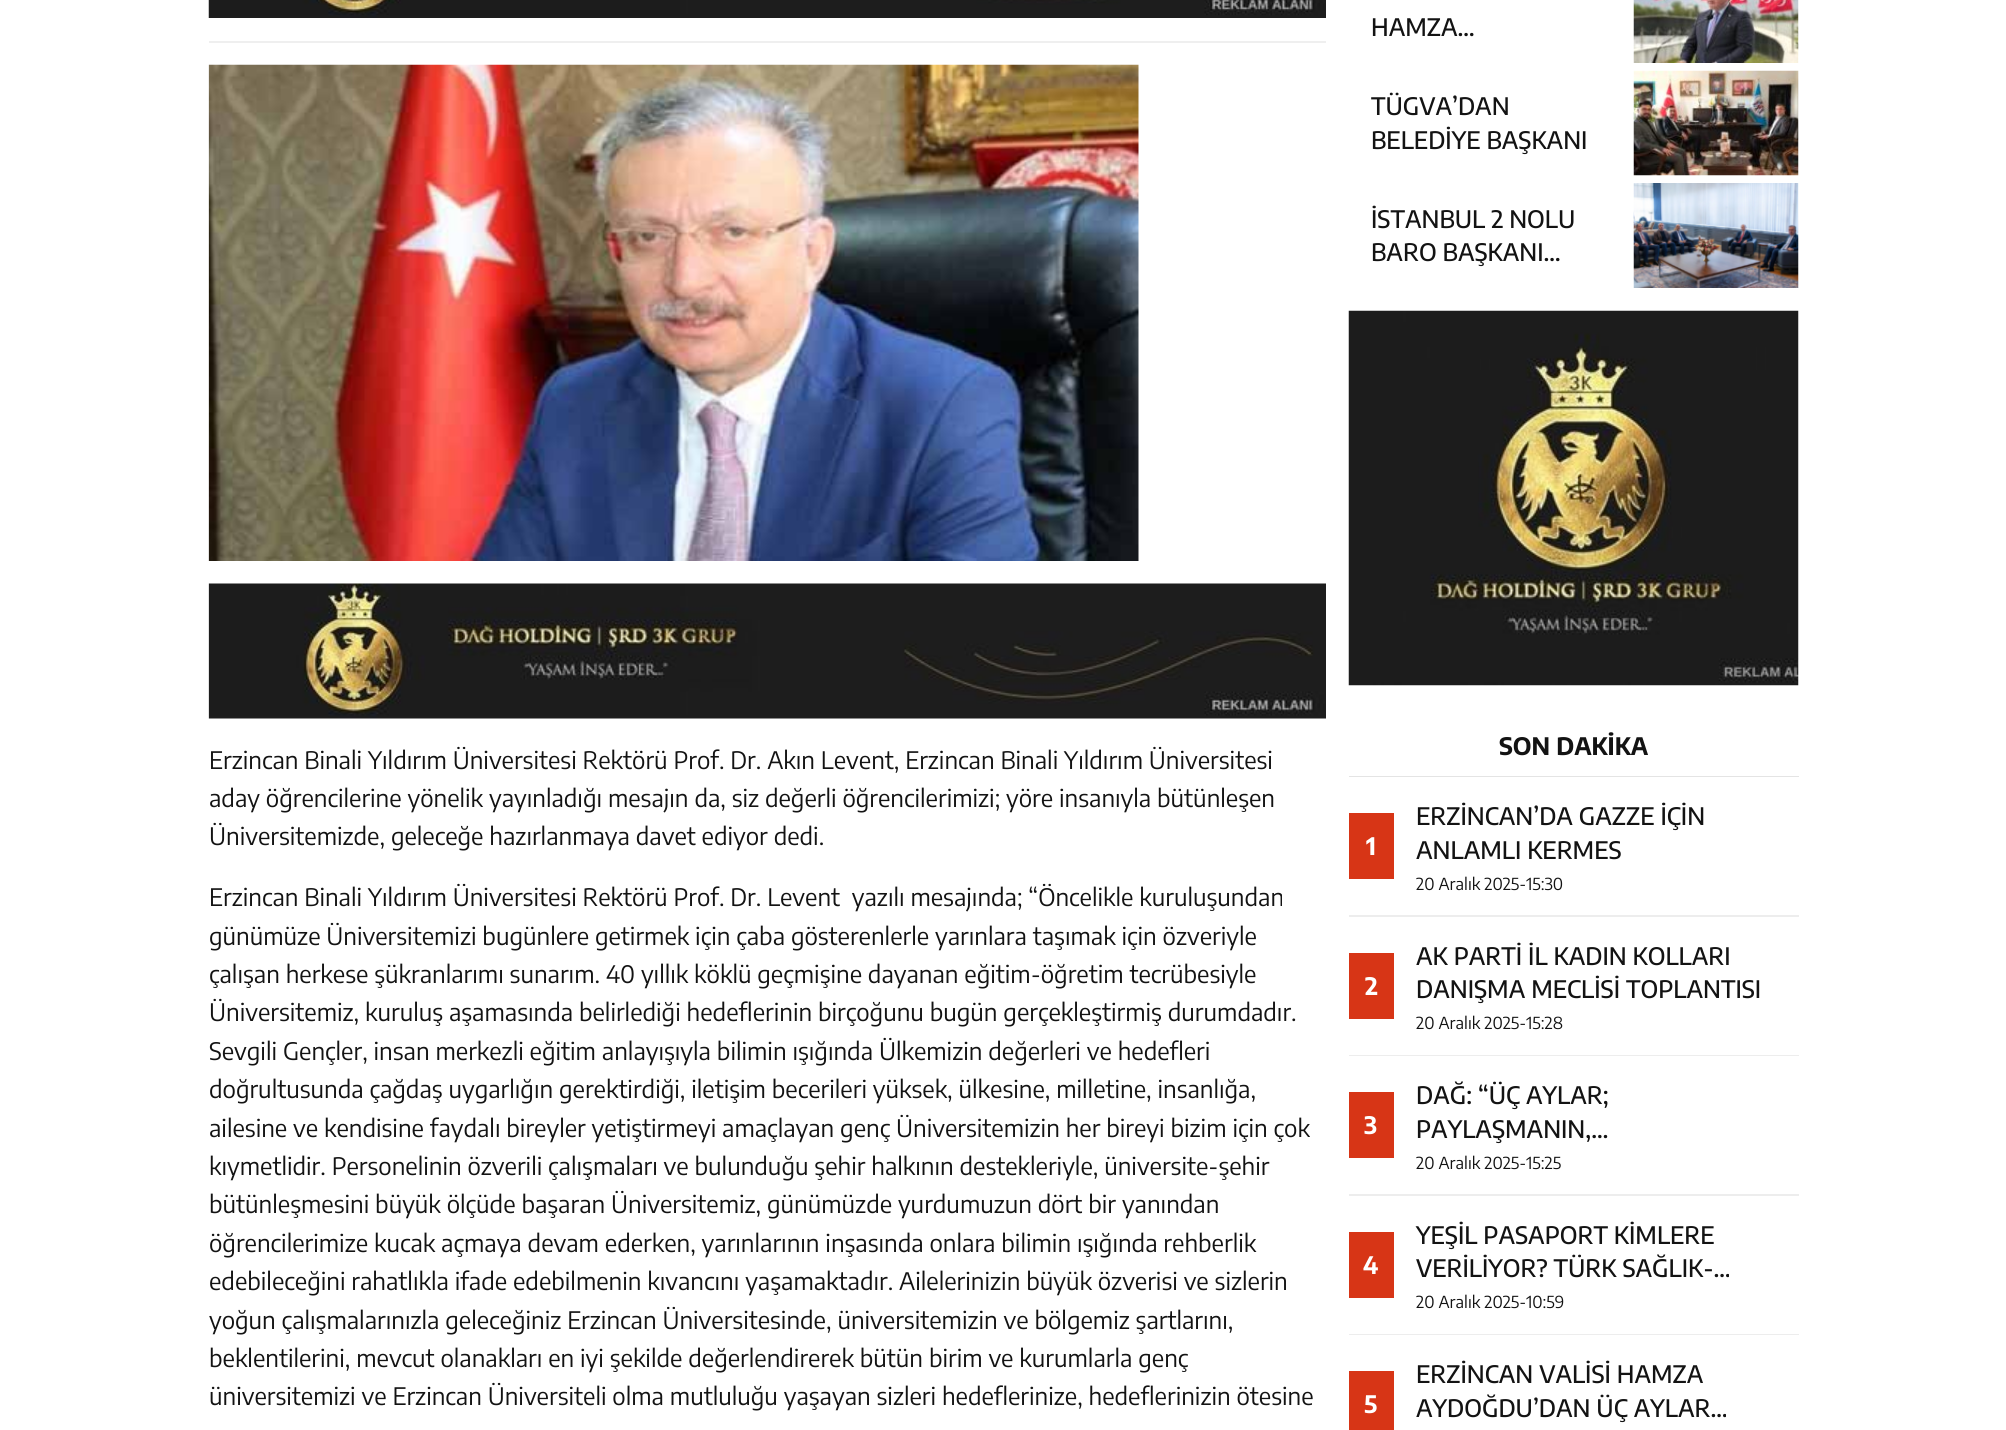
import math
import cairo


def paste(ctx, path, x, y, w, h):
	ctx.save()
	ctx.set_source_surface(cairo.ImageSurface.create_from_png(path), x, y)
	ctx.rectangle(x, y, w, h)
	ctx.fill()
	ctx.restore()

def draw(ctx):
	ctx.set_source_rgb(1, 1, 1)
	ctx.paint()
	paste(ctx, 'media/1.png', 208, 0, 1118, 18)
	ctx.set_source_rgb(0.937, 0.937, 0.937)
	ctx.rectangle(209, 41, 1117, 2)
	ctx.fill()
	paste(ctx, 'media/2.png', 208, 64, 931, 497)
	paste(ctx, 'media/3.png', 208, 583, 1118, 136)
	ctx.select_font_face('Encode Sans Condensed')
	ctx.set_font_size(24)
	ctx.set_source_rgb(0.075, 0.075, 0.075)
	for x, y, s in [
		(209, 769, 'Erzincan Binali Yıldırım Üniversitesi Rektörü Prof. Dr. Akın Levent, Erzincan Binali Yıldırım Üniversitesi'),
		(209, 807, 'aday öğrencilerine yönelik yayınladığı mesajın da, siz değerli öğrencilerimizi; yöre insanıyla bütünleşen'),
		(209, 845, 'Üniversitemizde, geleceğe hazırlanmaya davet ediyor dedi.'),
		(209, 906, 'Erzincan Binali Yıldırım Üniversitesi Rektörü Prof. Dr. Levent  yazılı mesajında; “Öncelikle kuruluşundan'),
		(209, 945, 'günümüze Üniversitemizi bugünlere getirmek için çaba gösterenlerle yarınlara taşımak için özveriyle'),
		(209, 983, 'çalışan herkese şükranlarımı sunarım. 40 yıllık köklü geçmişine dayanan eğitim-öğretim tecrübesiyle'),
		(209, 1021, 'Üniversitemiz, kuruluş aşamasında belirlediği hedeflerinin birçoğunu bugün gerçekleştirmiş durumdadır.'),
		(209, 1060, 'Sevgili Gençler, insan merkezli eğitim anlayışıyla bilimin ışığında Ülkemizin değerleri ve hedefleri'),
		(209, 1098, 'doğrultusunda çağdaş uygarlığın gerektirdiği, iletişim becerileri yüksek, ülkesine, milletine, insanlığa,'),
		(209, 1137, 'ailesine ve kendisine faydalı bireyler yetiştirmeyi amaçlayan genç Üniversitemizin her bireyi bizim için çok'),
		(209, 1175, 'kıymetlidir. Personelinin özverili çalışmaları ve bulunduğu şehir halkının destekleriyle, üniversite-şehir'),
		(209, 1213, 'bütünleşmesini büyük ölçüde başaran Üniversitemiz, günümüzde yurdumuzun dört bir yanından'),
		(209, 1252, 'öğrencilerimize kucak açmaya devam ederken, yarınlarının inşasında onlara bilimin ışığında rehberlik'),
		(209, 1290, 'edebileceğini rahatlıkla ifade edebilmenin kıvancını yaşamaktadır. Ailelerinizin büyük özverisi ve sizlerin'),
		(209, 1329, 'yoğun çalışmalarınızla geleceğiniz Erzincan Üniversitesinde, üniversitemizin ve bölgemiz şartlarını,'),
		(209, 1367, 'beklentilerini, mevcut olanakları en iyi şekilde değerlendirerek bütün birim ve kurumlarla genç'),
		(209, 1405, 'üniversitemizi ve Erzincan Üniversiteli olma mutluluğu yaşayan sizleri hedeflerinize, hedeflerinizin ötesine'),
	]:
		ctx.move_to(x, y)
		ctx.show_text(s)
	ctx.select_font_face('Encode Sans Condensed Medium')
	ctx.move_to(1371, 36)
	ctx.show_text('HAMZA…')
	paste(ctx, 'media/4.png', 1633, 0, 166, 63)
	ctx.move_to(1371, 115)
	ctx.show_text('TÜGVA’DAN')
	ctx.move_to(1371, 149)
	ctx.show_text('BELEDİYE BAŞKANI')
	paste(ctx, 'media/5.png', 1633, 70, 166, 106)
	ctx.move_to(1371, 228)
	ctx.show_text('İSTANBUL 2 NOLU')
	ctx.move_to(1371, 261)
	ctx.show_text('BARO BAŞKANI…')
	paste(ctx, 'media/6.png', 1633, 183, 166, 105)
	paste(ctx, 'media/7.png', 1348, 310, 451, 376)
	ctx.set_source_rgb(0.894, 0.894, 0.894)
	ctx.rectangle(1349, 776, 450, 1)
	ctx.fill()
	ctx.select_font_face('Encode Sans Condensed', cairo.FONT_SLANT_NORMAL, cairo.FONT_WEIGHT_BOLD)
	ctx.set_source_rgb(0.075, 0.075, 0.075)
	ctx.move_to(1499, 755)
	ctx.show_text('SON DAKİKA')
	ctx.set_source_rgb(0.929, 0.929, 0.929)
	ctx.rectangle(1349, 915, 450, 2)
	ctx.fill()
	ctx.set_source_rgb(0.843, 0.208, 0.086)
	ctx.rectangle(1349, 813, 45, 66)
	ctx.fill()
	ctx.set_source_rgb(1, 1, 1)
	ctx.move_to(1366, 855)
	ctx.show_text('1')
	ctx.select_font_face('Encode Sans Condensed Medium')
	ctx.set_source_rgb(0.075, 0.075, 0.075)
	ctx.move_to(1416, 825)
	ctx.show_text('ERZİNCAN’DA GAZZE İÇİN')
	ctx.move_to(1416, 859)
	ctx.show_text('ANLAMLI KERMES')
	ctx.select_font_face('Encode Sans Condensed')
	ctx.set_font_size(16.5)
	ctx.move_to(1416, 890)
	ctx.show_text('20 Aralık 2025-15:30')
	ctx.set_source_rgb(0.929, 0.929, 0.929)
	ctx.rectangle(1349, 1055, 450, 1)
	ctx.fill()
	ctx.set_source_rgb(0.843, 0.208, 0.086)
	ctx.rectangle(1349, 953, 45, 66)
	ctx.fill()
	ctx.select_font_face('Encode Sans Condensed', cairo.FONT_SLANT_NORMAL, cairo.FONT_WEIGHT_BOLD)
	ctx.set_font_size(24)
	ctx.set_source_rgb(1, 1, 1)
	ctx.move_to(1365, 995)
	ctx.show_text('2')
	ctx.select_font_face('Encode Sans Condensed Medium')
	ctx.set_source_rgb(0.075, 0.075, 0.075)
	ctx.move_to(1416, 965)
	ctx.show_text('AK PARTİ İL KADIN KOLLARI')
	ctx.move_to(1416, 998)
	ctx.show_text('DANIŞMA MECLİSİ TOPLANTISI')
	ctx.select_font_face('Encode Sans Condensed')
	ctx.set_font_size(16.5)
	ctx.move_to(1416, 1029)
	ctx.show_text('20 Aralık 2025-15:28')
	ctx.set_source_rgb(0.929, 0.929, 0.929)
	ctx.rectangle(1349, 1194, 450, 2)
	ctx.fill()
	ctx.set_source_rgb(0.843, 0.208, 0.086)
	ctx.rectangle(1349, 1092, 45, 66)
	ctx.fill()
	ctx.select_font_face('Encode Sans Condensed', cairo.FONT_SLANT_NORMAL, cairo.FONT_WEIGHT_BOLD)
	ctx.set_font_size(24)
	ctx.set_source_rgb(1, 1, 1)
	ctx.move_to(1364, 1134)
	ctx.show_text('3')
	ctx.select_font_face('Encode Sans Condensed Medium')
	ctx.set_source_rgb(0.075, 0.075, 0.075)
	ctx.move_to(1416, 1104)
	ctx.show_text('DAĞ: “ÜÇ AYLAR;')
	ctx.move_to(1416, 1138)
	ctx.show_text('PAYLAŞMANIN,…')
	ctx.select_font_face('Encode Sans Condensed')
	ctx.set_font_size(16.5)
	ctx.move_to(1416, 1169)
	ctx.show_text('20 Aralık 2025-15:25')
	ctx.set_source_rgb(0.929, 0.929, 0.929)
	ctx.rectangle(1349, 1334, 450, 1)
	ctx.fill()
	ctx.set_source_rgb(0.843, 0.208, 0.086)
	ctx.rectangle(1349, 1232, 45, 66)
	ctx.fill()
	ctx.select_font_face('Encode Sans Condensed', cairo.FONT_SLANT_NORMAL, cairo.FONT_WEIGHT_BOLD)
	ctx.set_font_size(24)
	ctx.set_source_rgb(1, 1, 1)
	ctx.move_to(1363, 1274)
	ctx.show_text('4')
	ctx.select_font_face('Encode Sans Condensed Medium')
	ctx.set_source_rgb(0.075, 0.075, 0.075)
	ctx.move_to(1416, 1244)
	ctx.show_text('YEŞİL PASAPORT KİMLERE')
	ctx.move_to(1416, 1277)
	ctx.show_text('VERİLİYOR? TÜRK SAĞLIK-…')
	ctx.select_font_face('Encode Sans Condensed')
	ctx.set_font_size(16.5)
	ctx.move_to(1416, 1308)
	ctx.show_text('20 Aralık 2025-10:59')
	ctx.set_source_rgb(0.843, 0.208, 0.086)
	ctx.rectangle(1349, 1371, 45, 59)
	ctx.fill()
	ctx.select_font_face('Encode Sans Condensed', cairo.FONT_SLANT_NORMAL, cairo.FONT_WEIGHT_BOLD)
	ctx.set_font_size(24)
	ctx.set_source_rgb(1, 1, 1)
	ctx.move_to(1364, 1413)
	ctx.show_text('5')
	ctx.select_font_face('Encode Sans Condensed Medium')
	ctx.set_source_rgb(0.075, 0.075, 0.075)
	ctx.move_to(1416, 1383)
	ctx.show_text('ERZİNCAN VALİSİ HAMZA')
	ctx.move_to(1416, 1417)
	ctx.show_text('AYDOĞDU’DAN ÜÇ AYLAR…')


surface = cairo.ImageSurface(cairo.FORMAT_RGB24, 2006, 1430)
ctx = cairo.Context(surface)
options = cairo.FontOptions()
options.set_hint_metrics(cairo.HINT_METRICS_OFF)
options.set_hint_style(cairo.HINT_STYLE_NONE)
ctx.set_font_options(options)
ctx.set_miter_limit(4)
draw(ctx)
surface.write_to_png('image.png')
